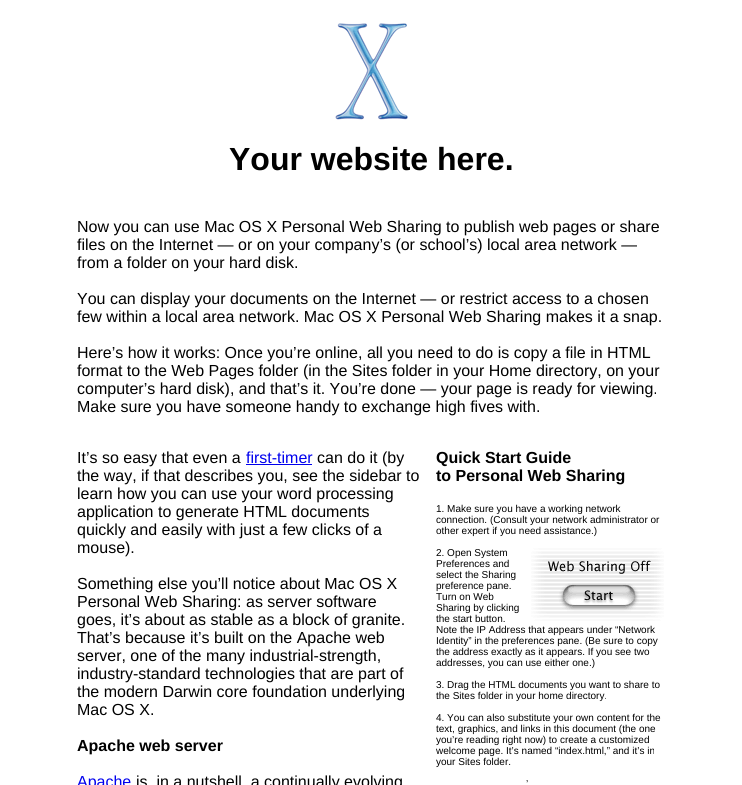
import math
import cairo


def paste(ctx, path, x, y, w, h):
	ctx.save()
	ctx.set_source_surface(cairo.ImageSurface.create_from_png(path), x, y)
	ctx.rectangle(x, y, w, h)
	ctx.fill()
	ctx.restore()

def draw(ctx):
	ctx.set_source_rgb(1, 1, 1)
	ctx.paint()
	paste(ctx, 'media/1.png', 335, 23, 73, 97)
	ctx.select_font_face('Liberation Sans', cairo.FONT_SLANT_NORMAL, cairo.FONT_WEIGHT_BOLD)
	ctx.set_font_size(32)
	ctx.set_source_rgb(0, 0, 0)
	ctx.move_to(229, 170)
	ctx.show_text('Your website here.')
	ctx.select_font_face('Liberation Sans')
	ctx.set_font_size(16)
	for x, y, s in [
		(77, 232, 'Now you can use Mac OS X Personal Web Sharing to publish web pages or share'),
		(77, 250, 'files on the Internet — or on your company’s (or school’s) local area network —'),
		(77, 268, 'from a folder on your hard disk.'),
		(77, 304, 'You can display your documents on the Internet — or restrict access to a chosen'),
		(77, 322, 'few within a local area network. Mac OS X Personal Web Sharing makes it a snap.'),
		(77, 358, 'Here’s how it works: Once you’re online, all you need to do is copy a file in HTML'),
		(77, 376, 'format to the Web Pages folder (in the Sites folder in your Home directory, on your'),
		(77, 394, 'computer’s hard disk), and that’s it. You’re done — your page is ready for viewing.'),
		(77, 412, 'Make sure you have someone handy to exchange high fives with.'),
		(77, 463, 'It’s so easy that even a'),
	]:
		ctx.move_to(x, y)
		ctx.show_text(s)
	ctx.set_source_rgb(0, 0, 0.933)
	ctx.move_to(246, 463)
	ctx.show_text('first-timer')
	ctx.rectangle(246, 464, 66, 1)
	ctx.fill()
	ctx.set_source_rgb(0, 0, 0)
	for x, y, s in [
		(317, 463, 'can do it (by'),
		(77, 481, 'the way, if that describes you, see the sidebar to'),
		(77, 499, 'learn how you can use your word processing'),
		(77, 517, 'application to generate HTML documents'),
		(77, 535, 'quickly and easily with just a few clicks of a'),
		(77, 553, 'mouse).'),
		(77, 589, 'Something else you’ll notice about Mac OS X'),
		(77, 607, 'Personal Web Sharing: as server software'),
		(77, 625, 'goes, it’s about as stable as a block of granite.'),
		(77, 643, 'That’s because it’s built on the Apache web'),
		(77, 661, 'server, one of the many industrial-strength,'),
		(77, 679, 'industry-standard technologies that are part of'),
		(77, 697, 'the modern Darwin core foundation underlying'),
		(77, 715, 'Mac OS X.'),
	]:
		ctx.move_to(x, y)
		ctx.show_text(s)
	ctx.select_font_face('Liberation Sans', cairo.FONT_SLANT_NORMAL, cairo.FONT_WEIGHT_BOLD)
	ctx.move_to(77, 751)
	ctx.show_text('Apache web server')
	ctx.select_font_face('Liberation Sans')
	ctx.set_source_rgb(0, 0, 0.933)
	ctx.move_to(77, 787)
	ctx.show_text('Apache')
	ctx.set_source_rgb(0, 0, 0)
	ctx.move_to(136, 787)
	ctx.show_text('is, in a nutshell, a continually evolving')
	ctx.select_font_face('Liberation Sans', cairo.FONT_SLANT_NORMAL, cairo.FONT_WEIGHT_BOLD)
	ctx.move_to(436, 463)
	ctx.show_text('Quick Start Guide')
	ctx.move_to(436, 481)
	ctx.show_text('to Personal Web Sharing')
	ctx.select_font_face('Liberation Sans')
	ctx.set_font_size(10)
	for x, y, s in [
		(436, 512, '1. Make sure you have a working network'),
		(436, 523, 'connection. (Consult your network administrator or'),
		(436, 534, 'other expert if you need assistance.)'),
		(436, 556, '2. Open System'),
	]:
		ctx.move_to(x, y)
		ctx.show_text(s)
	paste(ctx, 'media/2.png', 531, 548, 133, 73)
	for x, y, s in [
		(436, 567, 'Preferences and'),
		(436, 578, 'select the Sharing'),
		(436, 589, 'preference pane.'),
		(436, 600, 'Turn on Web'),
		(436, 611, 'Sharing by clicking'),
		(436, 622, 'the start button.'),
		(436, 633, 'Note the IP Address that appears under “Network'),
		(436, 644, 'Identity” in the preferences pane. (Be sure to copy'),
		(436, 655, 'the address exactly as it appears. If you see two'),
		(436, 666, 'addresses, you can use either one.)'),
		(436, 688, '3. Drag the HTML documents you want to share to'),
		(436, 699, 'the Sites folder in your home directory.'),
		(436, 721, '4. You can also substitute your own content for the'),
		(436, 732, 'text, graphics, and links in this document (the one'),
		(436, 743, 'you’re reading right now) to create a customized'),
		(436, 754, 'welcome page. It’s named “index.html,” and it’s in'),
		(436, 765, 'your Sites folder.'),
		(526, 787, '’'),
	]:
		ctx.move_to(x, y)
		ctx.show_text(s)


surface = cairo.ImageSurface(cairo.FORMAT_RGB24, 742, 785)
ctx = cairo.Context(surface)
options = cairo.FontOptions()
options.set_hint_metrics(cairo.HINT_METRICS_OFF)
options.set_hint_style(cairo.HINT_STYLE_NONE)
ctx.set_font_options(options)
ctx.set_miter_limit(4)
draw(ctx)
surface.write_to_png('image.png')
